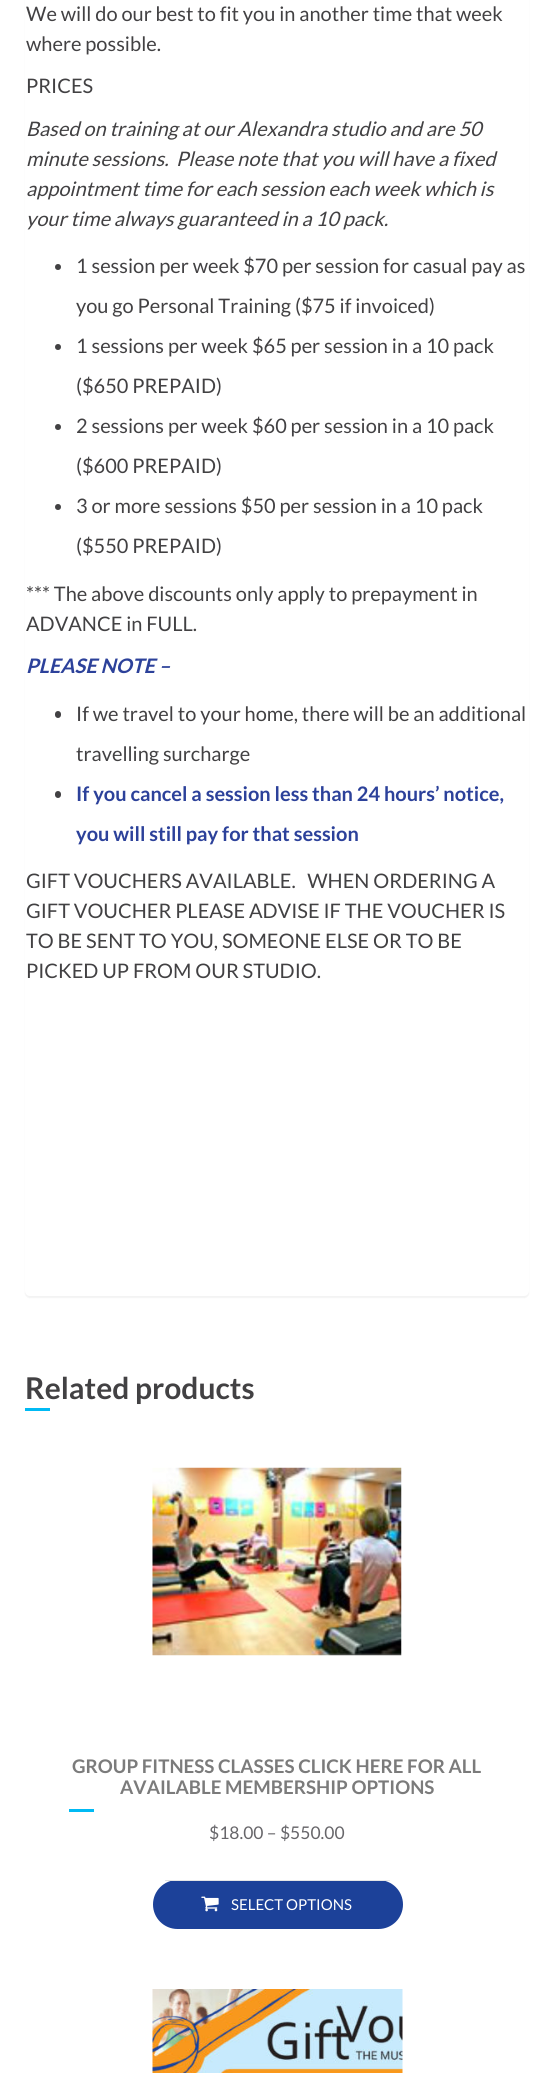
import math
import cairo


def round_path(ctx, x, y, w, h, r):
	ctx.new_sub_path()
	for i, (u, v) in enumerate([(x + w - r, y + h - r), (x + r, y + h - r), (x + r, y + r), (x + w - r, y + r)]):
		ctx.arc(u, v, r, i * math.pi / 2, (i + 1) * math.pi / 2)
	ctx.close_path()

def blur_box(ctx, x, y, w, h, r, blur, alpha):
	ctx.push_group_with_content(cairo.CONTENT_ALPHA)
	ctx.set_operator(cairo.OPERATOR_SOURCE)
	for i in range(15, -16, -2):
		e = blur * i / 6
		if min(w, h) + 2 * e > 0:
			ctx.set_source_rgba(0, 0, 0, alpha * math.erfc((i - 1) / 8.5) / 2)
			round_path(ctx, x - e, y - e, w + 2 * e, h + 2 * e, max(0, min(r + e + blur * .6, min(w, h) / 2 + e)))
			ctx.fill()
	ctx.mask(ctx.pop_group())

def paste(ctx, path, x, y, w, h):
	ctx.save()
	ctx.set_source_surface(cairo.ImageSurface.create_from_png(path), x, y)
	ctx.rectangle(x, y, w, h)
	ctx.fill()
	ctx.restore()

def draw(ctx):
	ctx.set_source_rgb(1, 1, 1)
	ctx.paint()
	ctx.set_source_rgb(0, 0, 0)
	blur_box(ctx, 25, -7, 504, 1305, 5, 0.5, 0.05)
	ctx.set_source_rgb(1, 1, 1)
	round_path(ctx, 25, -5, 504, 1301, 5)
	ctx.fill()
	ctx.select_font_face('Lato')
	ctx.set_font_size(20)
	ctx.set_source_rgb(0.259, 0.255, 0.263)
	for x, y, s in [
		(26, 21, 'We will do our best to fit you in another time that week'),
		(26, 51, 'where possible.'),
		(26, 93, 'PRICES'),
	]:
		ctx.move_to(x, y)
		ctx.show_text(s)
	ctx.select_font_face('Lato', cairo.FONT_SLANT_ITALIC)
	for x, y, s in [
		(26, 136, 'Based on training at our Alexandra studio and are 50'),
		(26, 166, 'minute sessions.  Please note that you will have a fixed'),
		(26, 196, 'appointment time for each session each week which is'),
		(26, 226, 'your time always guaranteed in a 10 pack.'),
	]:
		ctx.move_to(x, y)
		ctx.show_text(s)
	ctx.new_path()
	ctx.arc(58, 267, 3, 0, 2 * math.pi)
	ctx.fill()
	ctx.select_font_face('Lato')
	ctx.move_to(76, 273)
	ctx.show_text('1 session per week $70 per session for casual pay as')
	ctx.move_to(76, 313)
	ctx.show_text('you go Personal Training ($75 if invoiced)')
	ctx.new_path()
	ctx.arc(58, 347, 3, 0, 2 * math.pi)
	ctx.fill()
	ctx.move_to(76, 353)
	ctx.show_text('1 sessions per week $65 per session in a 10 pack')
	ctx.move_to(76, 393)
	ctx.show_text('($650 PREPAID)')
	ctx.new_path()
	ctx.arc(58, 427, 3, 0, 2 * math.pi)
	ctx.fill()
	ctx.move_to(76, 433)
	ctx.show_text('2 sessions per week $60 per session in a 10 pack')
	ctx.move_to(76, 473)
	ctx.show_text('($600 PREPAID)')
	ctx.new_path()
	ctx.arc(58, 507, 3, 0, 2 * math.pi)
	ctx.fill()
	for x, y, s in [
		(76, 513, '3 or more sessions $50 per session in a 10 pack'),
		(76, 553, '($550 PREPAID)'),
		(26, 601, '*** The above discounts only apply to prepayment in'),
		(26, 631, 'ADVANCE in FULL.'),
	]:
		ctx.move_to(x, y)
		ctx.show_text(s)
	ctx.select_font_face('Lato', cairo.FONT_SLANT_ITALIC, cairo.FONT_WEIGHT_BOLD)
	ctx.set_source_rgb(0.173, 0.255, 0.604)
	ctx.move_to(26, 673)
	ctx.show_text('PLEASE NOTE –')
	ctx.set_source_rgb(0.259, 0.255, 0.263)
	round_path(ctx, 55, 711, 6, 7, 3)
	ctx.fill()
	ctx.select_font_face('Lato')
	ctx.move_to(76, 721)
	ctx.show_text('If we travel to your home, there will be an additional')
	ctx.move_to(76, 761)
	ctx.show_text('travelling surcharge')
	round_path(ctx, 55, 791, 6, 7, 3)
	ctx.fill()
	ctx.select_font_face('Lato', cairo.FONT_SLANT_NORMAL, cairo.FONT_WEIGHT_BOLD)
	ctx.set_source_rgb(0.173, 0.255, 0.604)
	ctx.move_to(76, 801)
	ctx.show_text('If you cancel a session less than 24 hours’ notice,')
	ctx.move_to(76, 841)
	ctx.show_text('you will still pay for that session')
	ctx.select_font_face('Lato')
	ctx.set_source_rgb(0.259, 0.255, 0.263)
	for x, y, s in [
		(26, 888, 'GIFT VOUCHERS AVAILABLE.   WHEN ORDERING A'),
		(26, 918, 'GIFT VOUCHER PLEASE ADVISE IF THE VOUCHER IS'),
		(26, 948, 'TO BE SENT TO YOU, SOMEONE ELSE OR TO BE'),
		(26, 978, 'PICKED UP FROM OUR STUDIO.'),
	]:
		ctx.move_to(x, y)
		ctx.show_text(s)
	ctx.select_font_face('Lato', cairo.FONT_SLANT_NORMAL, cairo.FONT_WEIGHT_BOLD)
	ctx.set_font_size(30)
	ctx.move_to(25, 1399)
	ctx.show_text('Related products')
	ctx.set_source_rgb(0, 0.729, 0.957)
	ctx.rectangle(25, 1408, 25, 3)
	ctx.fill()
	paste(ctx, 'media/1.png', 152, 1467, 250, 189)
	ctx.set_font_size(18.75)
	ctx.set_source_rgb(0.482, 0.482, 0.482)
	ctx.move_to(72, 1773)
	ctx.show_text('GROUP FITNESS CLASSES CLICK HERE FOR ALL')
	ctx.move_to(120, 1794)
	ctx.show_text('AVAILABLE MEMBERSHIP OPTIONS')
	ctx.set_source_rgb(0, 0.729, 0.957)
	ctx.rectangle(69, 1809, 25, 3)
	ctx.fill()
	ctx.select_font_face('Lato')
	ctx.set_font_size(17.5)
	ctx.set_source_rgb(0.404, 0.4, 0.416)
	ctx.move_to(209, 1839)
	ctx.show_text('$18.00 – $550.00')
	ctx.set_source_rgb(0.11, 0.255, 0.6)
	round_path(ctx, 153, 1880, 250, 49, 24.5)
	ctx.fill()
	ctx.set_source_rgb(0.898, 0.898, 0.898)
	ctx.rectangle(165, 1880, 225, 1)
	ctx.fill()
	paste(ctx, 'media/2.png', 201, 1896, 18, 16)
	ctx.set_font_size(15)
	ctx.set_source_rgb(1, 1, 1)
	ctx.move_to(231, 1910)
	ctx.show_text('SELECT OPTIONS')
	paste(ctx, 'media/3.png', 152, 1989, 251, 84)


surface = cairo.ImageSurface(cairo.FORMAT_RGB24, 553, 2073)
ctx = cairo.Context(surface)
options = cairo.FontOptions()
options.set_hint_metrics(cairo.HINT_METRICS_OFF)
options.set_hint_style(cairo.HINT_STYLE_NONE)
ctx.set_font_options(options)
ctx.set_miter_limit(4)
draw(ctx)
surface.write_to_png('image.png')
